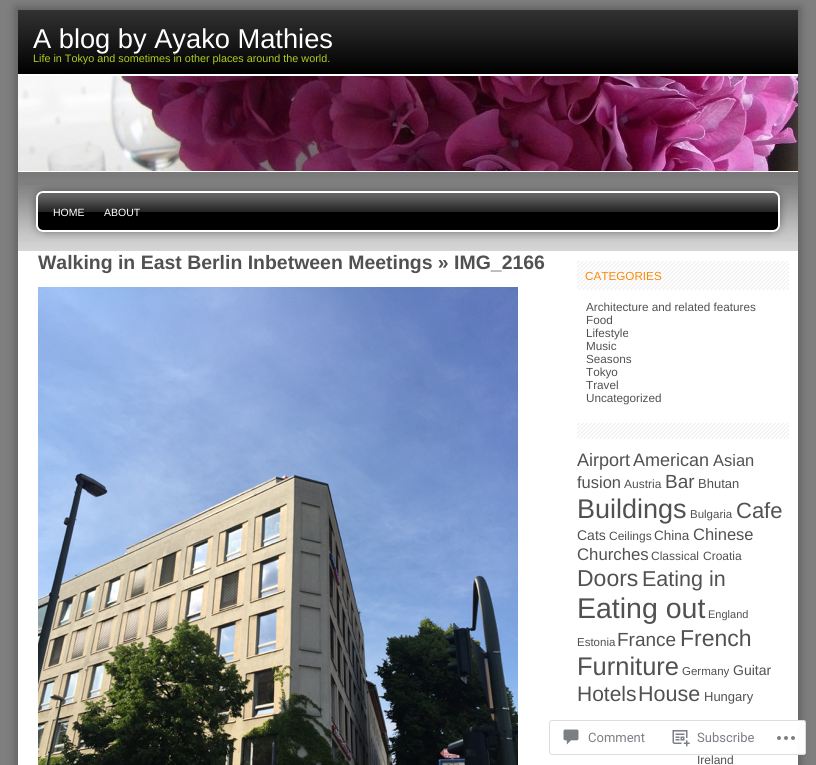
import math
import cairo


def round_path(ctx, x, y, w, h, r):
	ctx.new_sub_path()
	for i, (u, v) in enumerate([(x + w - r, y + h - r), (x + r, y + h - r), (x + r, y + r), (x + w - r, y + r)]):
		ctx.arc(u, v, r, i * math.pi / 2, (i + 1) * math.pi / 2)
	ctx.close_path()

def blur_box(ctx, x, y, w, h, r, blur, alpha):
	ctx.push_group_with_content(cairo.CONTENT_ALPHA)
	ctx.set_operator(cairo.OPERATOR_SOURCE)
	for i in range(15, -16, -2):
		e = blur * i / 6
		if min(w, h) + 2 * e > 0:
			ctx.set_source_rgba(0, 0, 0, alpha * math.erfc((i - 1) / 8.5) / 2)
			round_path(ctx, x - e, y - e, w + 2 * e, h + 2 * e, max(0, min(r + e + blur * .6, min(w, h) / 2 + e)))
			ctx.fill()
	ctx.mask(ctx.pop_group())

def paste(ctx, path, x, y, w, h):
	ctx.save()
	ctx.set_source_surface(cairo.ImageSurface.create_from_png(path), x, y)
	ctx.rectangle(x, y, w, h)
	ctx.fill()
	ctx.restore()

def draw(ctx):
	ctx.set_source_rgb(0.498, 0.498, 0.498)
	ctx.paint()
	ctx.set_source_rgb(0.353, 0.353, 0.353)
	blur_box(ctx, 16, 8, 784, 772, 0, 5, 1)
	gradient = cairo.LinearGradient(408, 10, 408, 74)
	gradient.add_color_stop_rgba(0, 0.196, 0.196, 0.196, 1)
	gradient.add_color_stop_rgba(1, 0, 0, 0, 1)
	ctx.set_source(gradient)
	ctx.rectangle(18, 10, 780, 64)
	ctx.fill()
	ctx.set_source_rgb(1, 1, 1)
	ctx.rectangle(18, 74, 780, 2)
	ctx.fill()
	ctx.select_font_face('Liberation Sans')
	ctx.set_font_size(27.25)
	ctx.move_to(33, 48)
	ctx.show_text('A blog by Ayako Mathies')
	ctx.set_font_size(10.8)
	ctx.set_source_rgb(0.678, 0.812, 0.125)
	ctx.move_to(33, 62)
	ctx.show_text('Life in Tokyo and sometimes in other places around the world.')
	paste(ctx, 'media/1.png', 18, 76, 780, 95)
	ctx.set_source_rgb(1, 1, 1)
	ctx.rectangle(18, 251, 780, 514)
	ctx.fill()
	paste(ctx, 'media/2.png', 18, 172, 780, 79)
	ctx.rectangle(18, 171, 780, 1)
	ctx.fill()
	paste(ctx, 'media/3.png', 18, 185, 27, 54)
	ctx.set_font_size(10.5)
	ctx.move_to(53, 216)
	ctx.show_text('HOME')
	ctx.move_to(104, 216)
	ctx.show_text('ABOUT')
	paste(ctx, 'media/4.png', 771, 185, 27, 54)
	ctx.select_font_face('Liberation Sans', cairo.FONT_SLANT_NORMAL, cairo.FONT_WEIGHT_BOLD)
	ctx.set_font_size(19.45)
	ctx.set_source_rgb(0.318, 0.318, 0.318)
	ctx.move_to(38, 269)
	ctx.show_text('Walking in East Berlin Inbetween Meetings » IMG_2166')
	paste(ctx, 'media/5.png', 38, 287, 480, 478)
	paste(ctx, 'media/6.png', 577, 261, 212, 29)
	ctx.select_font_face('Liberation Sans')
	ctx.set_font_size(11.7)
	ctx.set_source_rgb(0.969, 0.545, 0.047)
	ctx.move_to(585, 280)
	ctx.show_text('CATEGORIES')
	ctx.set_source_rgb(0.318, 0.318, 0.318)
	for x, y, s in [
		(586, 311, 'Architecture and related features'),
		(586, 324, 'Food'),
		(586, 337, 'Lifestyle'),
		(586, 350, 'Music'),
		(586, 363, 'Seasons'),
		(586, 376, 'Tokyo'),
		(586, 389, 'Travel'),
		(586, 402, 'Uncategorized'),
	]:
		ctx.move_to(x, y)
		ctx.show_text(s)
	paste(ctx, 'media/7.png', 577, 423, 212, 16)
	ctx.set_font_size(18)
	ctx.move_to(577, 466)
	ctx.show_text('Airport')
	ctx.move_to(633, 466)
	ctx.show_text('American')
	ctx.set_font_size(16.5)
	ctx.move_to(713, 466)
	ctx.show_text('Asian')
	ctx.move_to(577, 488)
	ctx.show_text('fusion')
	ctx.set_font_size(12)
	ctx.move_to(624, 488)
	ctx.show_text('Austria')
	ctx.set_font_size(19)
	ctx.move_to(665, 488)
	ctx.show_text('Bar')
	ctx.set_font_size(13)
	ctx.move_to(698, 488)
	ctx.show_text('Bhutan')
	ctx.set_font_size(27)
	ctx.move_to(577, 518)
	ctx.show_text('Buildings')
	ctx.set_font_size(11.5)
	ctx.move_to(690, 518)
	ctx.show_text('Bulgaria')
	ctx.set_font_size(22)
	ctx.move_to(736, 518)
	ctx.show_text('Cafe')
	ctx.set_font_size(14)
	ctx.move_to(577, 540)
	ctx.show_text('Cats')
	ctx.set_font_size(12)
	ctx.move_to(609, 540)
	ctx.show_text('Ceilings')
	ctx.set_font_size(13.5)
	ctx.move_to(654, 540)
	ctx.show_text('China')
	ctx.set_font_size(16.5)
	ctx.move_to(693, 540)
	ctx.show_text('Chinese')
	ctx.set_font_size(16.75)
	ctx.move_to(577, 560)
	ctx.show_text('Churches')
	ctx.set_font_size(12)
	ctx.move_to(651, 560)
	ctx.show_text('Classical')
	ctx.move_to(703, 560)
	ctx.show_text('Croatia')
	ctx.set_font_size(23)
	ctx.move_to(577, 586)
	ctx.show_text('Doors')
	ctx.set_font_size(21.5)
	ctx.move_to(642, 586)
	ctx.show_text('Eating in')
	ctx.set_font_size(28.5)
	ctx.move_to(577, 618)
	ctx.show_text('Eating out')
	ctx.set_font_size(11)
	ctx.move_to(708, 618)
	ctx.show_text('England')
	ctx.set_font_size(11.5)
	ctx.move_to(577, 646)
	ctx.show_text('Estonia')
	ctx.set_font_size(19)
	ctx.move_to(617, 646)
	ctx.show_text('France')
	ctx.set_font_size(23)
	ctx.move_to(680, 646)
	ctx.show_text('French')
	ctx.set_font_size(25.5)
	ctx.move_to(577, 675)
	ctx.show_text('Furniture')
	ctx.set_font_size(11.5)
	ctx.move_to(682, 675)
	ctx.show_text('Germany')
	ctx.set_font_size(14)
	ctx.move_to(733, 675)
	ctx.show_text('Guitar')
	ctx.set_font_size(21)
	ctx.move_to(577, 701)
	ctx.show_text('Hotels')
	ctx.set_font_size(21.5)
	ctx.move_to(638, 701)
	ctx.show_text('House')
	ctx.set_font_size(13)
	ctx.move_to(704, 701)
	ctx.show_text('Hungary')
	ctx.set_font_size(12)
	ctx.move_to(697, 764)
	ctx.show_text('Ireland')
	ctx.set_source_rgba(1, 1, 1, 0.98)
	round_path(ctx, 549, 720, 257, 35, 3)
	ctx.fill()
	round_path(ctx, 549.5, 720.5, 256, 34, 2.5)
	ctx.set_source_rgba(0.863, 0.863, 0.871, 0.98)
	ctx.set_line_width(1)
	ctx.stroke()
	paste(ctx, 'media/8.png', 563, 729, 16, 16)
	ctx.select_font_face('Roboto')
	ctx.set_font_size(13)
	ctx.set_source_rgb(0.482, 0.498, 0.522)
	ctx.move_to(588, 742)
	ctx.show_text('Comment')
	paste(ctx, 'media/9.png', 672, 730, 18, 17)
	ctx.move_to(697, 742)
	ctx.show_text('Subscribe')
	paste(ctx, 'media/10.png', 777, 736, 18, 4)


surface = cairo.ImageSurface(cairo.FORMAT_RGB24, 816, 765)
ctx = cairo.Context(surface)
options = cairo.FontOptions()
options.set_hint_metrics(cairo.HINT_METRICS_OFF)
options.set_hint_style(cairo.HINT_STYLE_NONE)
ctx.set_font_options(options)
ctx.set_miter_limit(4)
draw(ctx)
surface.write_to_png('image.png')
